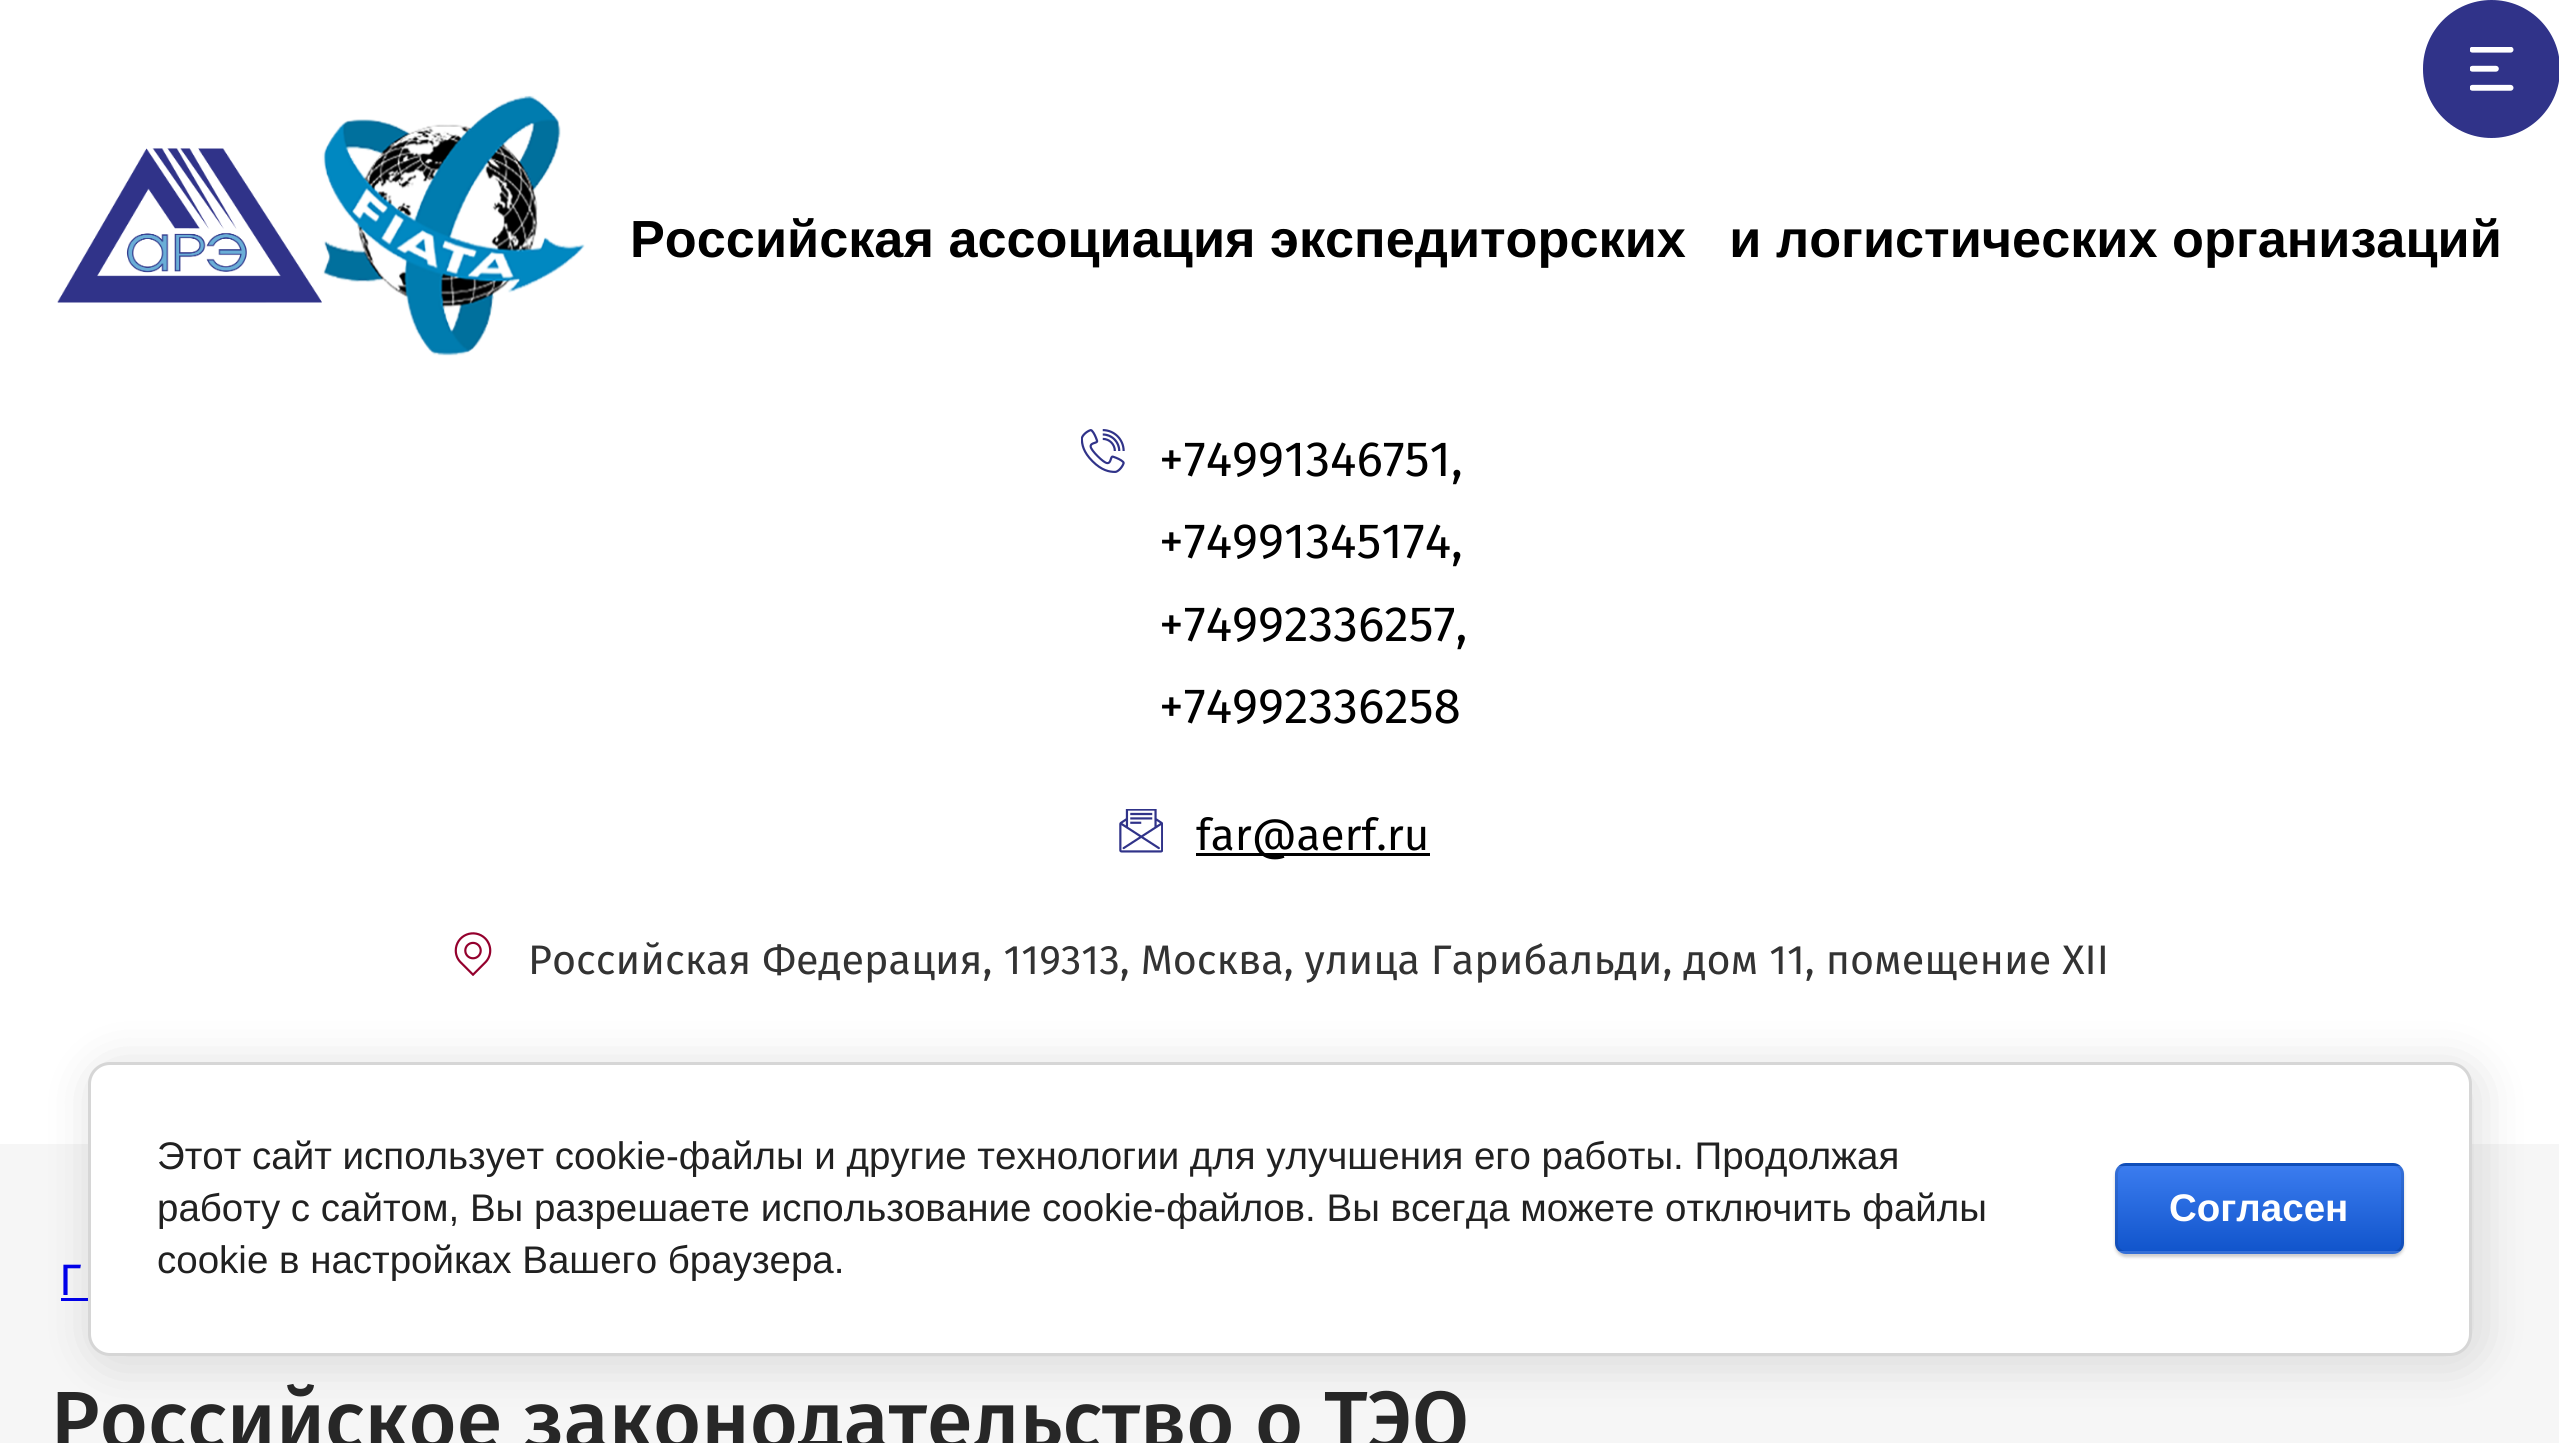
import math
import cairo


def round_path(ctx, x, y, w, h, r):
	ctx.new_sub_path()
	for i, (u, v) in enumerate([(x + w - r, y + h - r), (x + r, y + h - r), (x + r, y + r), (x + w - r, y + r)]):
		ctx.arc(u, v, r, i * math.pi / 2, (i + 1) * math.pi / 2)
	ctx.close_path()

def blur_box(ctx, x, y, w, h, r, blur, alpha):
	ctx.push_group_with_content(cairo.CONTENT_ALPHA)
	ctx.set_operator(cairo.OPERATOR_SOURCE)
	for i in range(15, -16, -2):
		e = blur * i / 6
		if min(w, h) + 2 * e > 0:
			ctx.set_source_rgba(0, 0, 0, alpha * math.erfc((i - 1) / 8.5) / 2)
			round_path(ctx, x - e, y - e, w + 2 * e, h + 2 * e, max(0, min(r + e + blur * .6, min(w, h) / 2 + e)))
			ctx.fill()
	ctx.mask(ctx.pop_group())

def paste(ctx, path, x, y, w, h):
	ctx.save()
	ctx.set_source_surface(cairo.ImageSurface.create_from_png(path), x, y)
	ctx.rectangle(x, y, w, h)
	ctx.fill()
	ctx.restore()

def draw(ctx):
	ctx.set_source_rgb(1, 1, 1)
	ctx.paint()
	ctx.set_source_rgb(0.188, 0.2, 0.537)
	round_path(ctx, 2423, 0, 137, 138, 68.5)
	ctx.fill()
	paste(ctx, 'media/1.png', 2470, 47, 44, 44)
	paste(ctx, 'media/2.png', 57, 148, 265, 155)
	paste(ctx, 'media/3.png', 322, 95, 263, 261)
	ctx.select_font_face('Liberation Sans', cairo.FONT_SLANT_NORMAL, cairo.FONT_WEIGHT_BOLD)
	ctx.set_font_size(52.25)
	ctx.set_source_rgb(0, 0, 0)
	ctx.move_to(630, 257)
	ctx.show_text('Российская ассоциация экспедиторских   и логистических организаций')
	paste(ctx, 'media/4.png', 1081, 429, 44, 44)
	ctx.select_font_face('Fira Sans')
	ctx.set_font_size(49.5)
	for x, y, s in [
		(1159, 476, '+74991346751,'),
		(1159, 558, '+74991345174,'),
		(1159, 641, '+74992336257,'),
		(1159, 723, '+74992336258'),
	]:
		ctx.move_to(x, y)
		ctx.show_text(s)
	paste(ctx, 'media/5.png', 1119, 809, 44, 44)
	ctx.rectangle(1196, 853, 234, 3)
	ctx.fill()
	ctx.set_font_size(44)
	ctx.move_to(1196, 850)
	ctx.show_text('far@aerf.ru')
	paste(ctx, 'media/6.png', 454, 932, 38, 44)
	ctx.set_font_size(41.25)
	ctx.set_source_rgb(0.2, 0.2, 0.2)
	ctx.move_to(528, 974)
	ctx.show_text('Российская Федерация, 119313, Москва, улица Гарибальди, дом 11, помещение XII')
	ctx.set_source_rgb(0.961, 0.961, 0.961)
	ctx.rectangle(0, 1144, 2559, 299)
	ctx.fill()
	ctx.set_font_size(44)
	ctx.set_source_rgb(0, 0, 0.933)
	ctx.move_to(59, 1295)
	ctx.show_text('Г')
	ctx.rectangle(61, 1298, 27, 3)
	ctx.fill()
	ctx.select_font_face('Fira Sans Medium')
	ctx.set_font_size(82.5)
	ctx.set_source_rgb(0.153, 0.153, 0.153)
	ctx.move_to(51, 1449)
	ctx.show_text('Российское законодательство о ТЭО')
	ctx.set_source_rgb(0, 0, 0)
	blur_box(ctx, 94, 1067, 2384, 294, 22, 25, 0.14)
	ctx.set_source_rgb(1, 1, 1)
	round_path(ctx, 89.5, 1063.5, 2381, 291, 20.5)
	ctx.fill_preserve()
	ctx.set_source_rgb(0.839, 0.839, 0.839)
	ctx.set_line_width(3)
	ctx.stroke()
	ctx.select_font_face('Liberation Sans')
	ctx.set_font_size(38.5)
	ctx.set_source_rgb(0.129, 0.129, 0.129)
	for x, y, s in [
		(157, 1169, 'Этот сайт использует cookie-файлы и другие технологии для улучшения его работы. Продолжая'),
		(157, 1221, 'работу с сайтом, Вы разрешаете использование cookie-файлов. Вы всегда можете отключить файлы'),
		(157, 1273, 'cookie в настройках Вашего браузера.'),
	]:
		ctx.move_to(x, y)
		ctx.show_text(s)
	ctx.set_source_rgb(0, 0, 0)
	blur_box(ctx, 2115, 1166, 289, 91, 11, 1.5, 0.2)
	ctx.save()
	round_path(ctx, 2115, 1163, 289, 91, 11)
	ctx.clip()
	gradient = cairo.LinearGradient(2259, 1081, 2259, 1166)
	gradient.add_color_stop_rgba(0, 0.231, 0.486, 0.937, 1)
	gradient.add_color_stop_rgba(1, 0.067, 0.333, 0.8, 1)
	ctx.set_source(gradient)
	ctx.rectangle(2115, 1163, 289, 3)
	ctx.fill()
	gradient = cairo.LinearGradient(2259, 1166, 2259, 1251)
	gradient.add_color_stop_rgba(0, 0.231, 0.486, 0.937, 1)
	gradient.add_color_stop_rgba(1, 0.067, 0.333, 0.8, 1)
	ctx.set_source(gradient)
	ctx.rectangle(2115, 1166, 289, 85)
	ctx.fill()
	gradient = cairo.LinearGradient(2259, 1251, 2259, 1337)
	gradient.add_color_stop_rgba(0, 0.231, 0.486, 0.937, 1)
	gradient.add_color_stop_rgba(1, 0.067, 0.333, 0.8, 1)
	ctx.set_source(gradient)
	ctx.rectangle(2115, 1251, 289, 3)
	ctx.fill()
	ctx.restore()
	round_path(ctx, 2116.5, 1164.5, 286, 88, 9.5)
	ctx.set_source_rgba(0, 0, 0, 0.1)
	ctx.stroke()
	ctx.select_font_face('Liberation Sans', cairo.FONT_SLANT_NORMAL, cairo.FONT_WEIGHT_BOLD)
	ctx.set_source_rgb(1, 1, 1)
	ctx.move_to(2169, 1221)
	ctx.show_text('Согласен')


surface = cairo.ImageSurface(cairo.FORMAT_RGB24, 2559, 1443)
ctx = cairo.Context(surface)
options = cairo.FontOptions()
options.set_hint_metrics(cairo.HINT_METRICS_OFF)
options.set_hint_style(cairo.HINT_STYLE_NONE)
ctx.set_font_options(options)
ctx.set_miter_limit(4)
draw(ctx)
surface.write_to_png('image.png')
